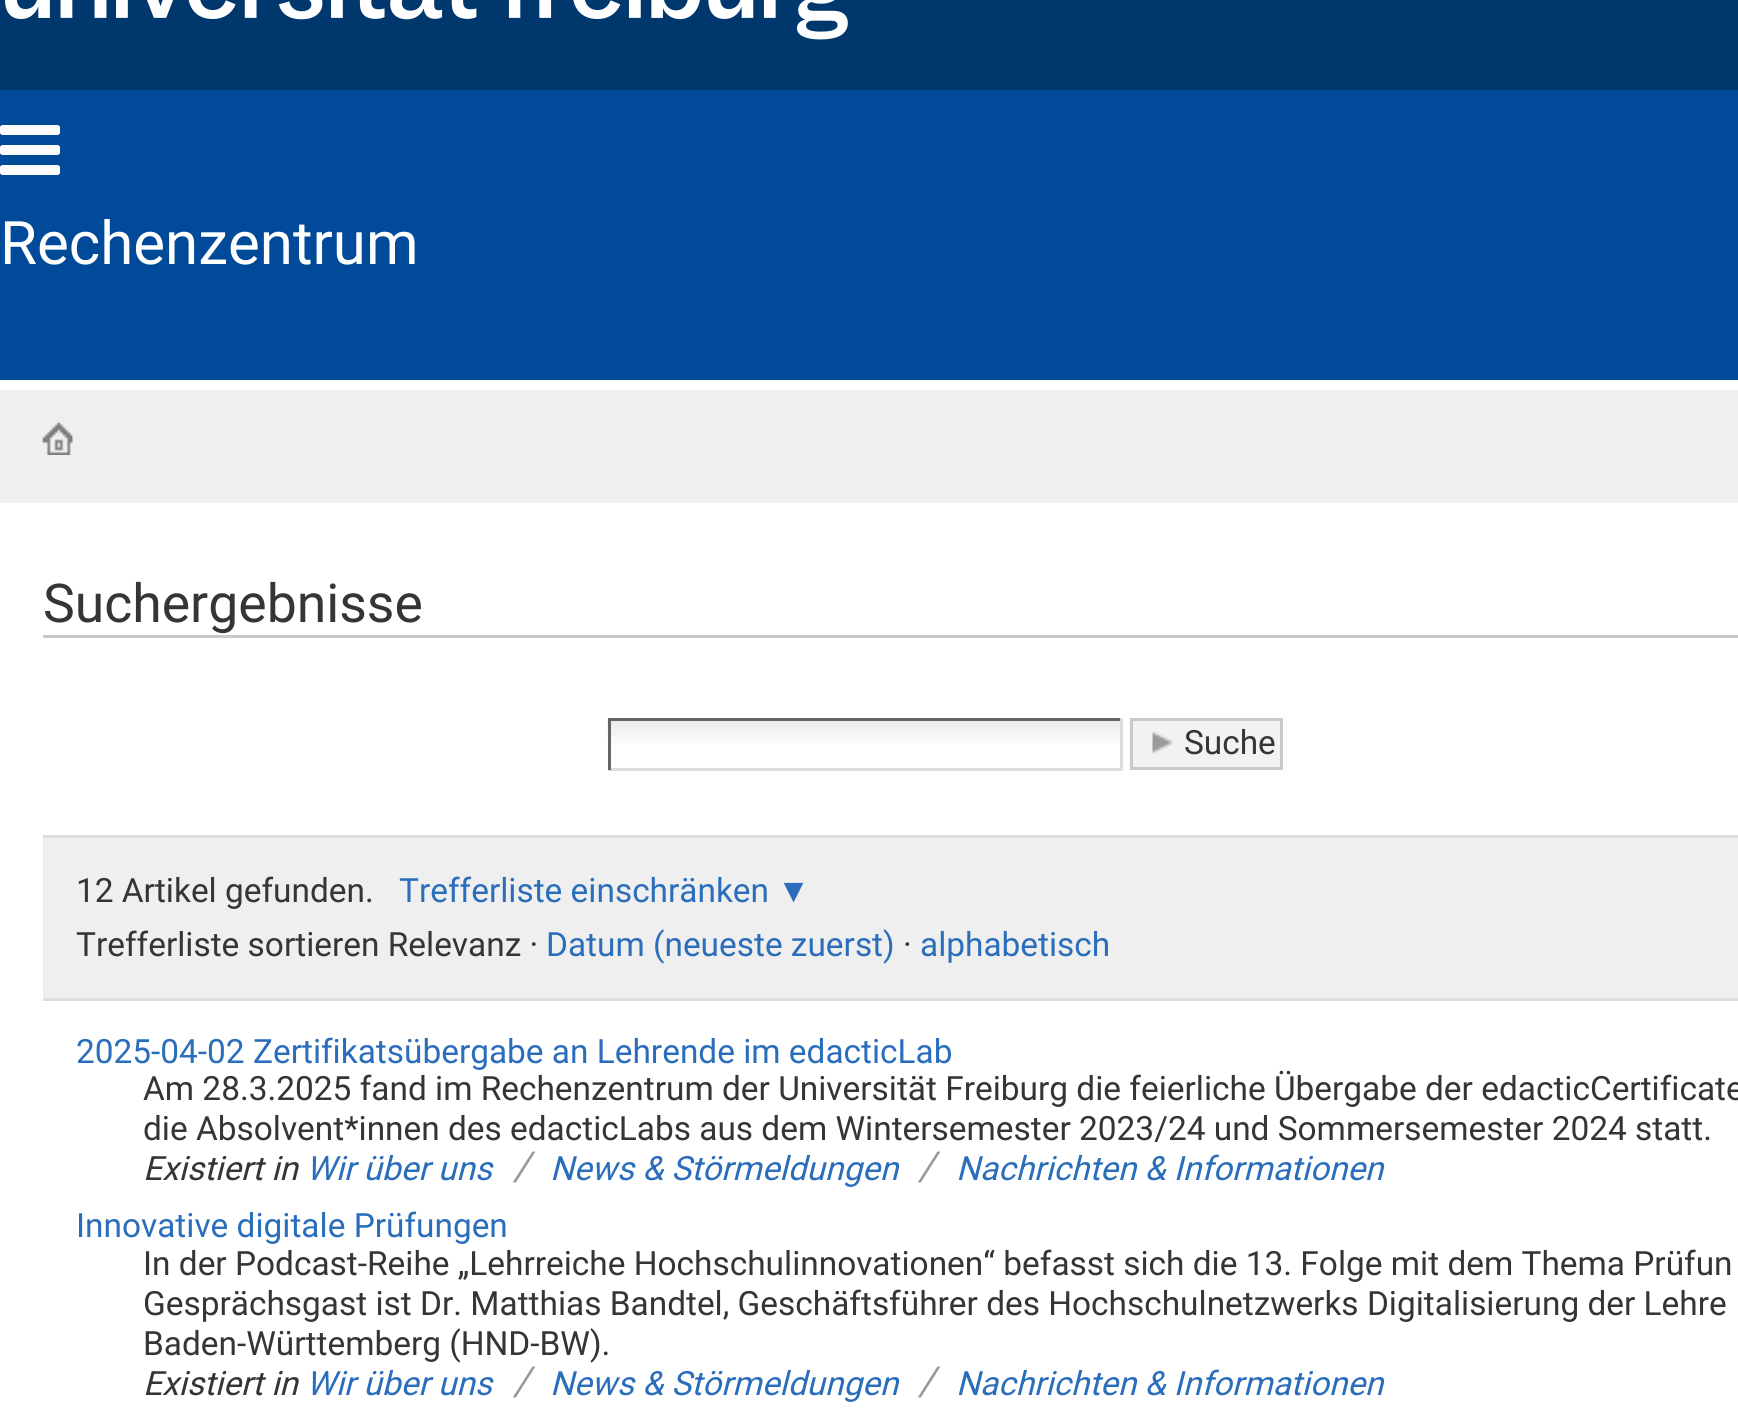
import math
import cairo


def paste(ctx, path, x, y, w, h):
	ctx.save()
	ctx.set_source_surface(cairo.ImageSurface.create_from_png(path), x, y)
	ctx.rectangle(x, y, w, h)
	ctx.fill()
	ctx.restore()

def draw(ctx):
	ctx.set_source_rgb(0, 0.29, 0.6)
	ctx.paint()
	ctx.set_source_rgb(1, 1, 1)
	ctx.rectangle(0, 380, 1738, 10)
	ctx.fill()
	ctx.set_source_rgb(0, 0.216, 0.427)
	ctx.rectangle(0, 0, 1738, 90)
	ctx.fill()
	paste(ctx, 'media/1.png', 5, 0, 843, 40)
	paste(ctx, 'media/2.png', 0, 125, 60, 50)
	ctx.select_font_face('Roboto')
	ctx.set_font_size(60)
	ctx.set_source_rgb(1, 1, 1)
	ctx.move_to(0, 264)
	ctx.show_text('Rechenzentrum')
	ctx.rectangle(0, 503, 1738, 913)
	ctx.fill()
	ctx.set_source_rgb(0.937, 0.937, 0.937)
	ctx.rectangle(0, 390, 1738, 113)
	ctx.fill()
	paste(ctx, 'media/3.png', 42, 422, 31, 33)
	ctx.set_source_rgb(0.788, 0.792, 0.784)
	ctx.rectangle(43, 635, 1695, 3)
	ctx.fill()
	ctx.set_font_size(53.5)
	ctx.set_source_rgb(0.212, 0.208, 0.204)
	ctx.move_to(43, 622)
	ctx.show_text('Suchergebnisse')
	paste(ctx, 'media/4.png', 607, 720, 513, 24)
	ctx.set_source_rgb(0.4, 0.4, 0.4)
	ctx.rectangle(608, 718, 515, 3)
	ctx.fill()
	ctx.set_source_rgb(0.867, 0.867, 0.867)
	ctx.rectangle(1120, 718, 3, 52)
	ctx.rectangle(608, 768, 515, 3)
	ctx.fill()
	ctx.set_source_rgb(0.4, 0.4, 0.4)
	ctx.rectangle(608, 718, 3, 52)
	ctx.fill()
	ctx.set_source_rgb(0.949, 0.953, 0.945)
	ctx.rectangle(1133, 721, 147, 46)
	ctx.fill()
	paste(ctx, 'media/5.png', 1152, 731, 21, 23)
	ctx.rectangle(1131.5, 719.5, 150, 49)
	ctx.set_source_rgb(0.788, 0.792, 0.784)
	ctx.set_line_width(3)
	ctx.stroke()
	ctx.set_font_size(33.4)
	ctx.set_source_rgb(0.212, 0.208, 0.204)
	ctx.move_to(1184, 754)
	ctx.show_text('Suche')
	ctx.set_source_rgb(0.937, 0.937, 0.937)
	ctx.rectangle(43, 838, 1695, 160)
	ctx.fill()
	ctx.set_source_rgb(0.867, 0.867, 0.867)
	ctx.rectangle(43, 835, 1695, 3)
	ctx.rectangle(43, 998, 1695, 3)
	ctx.fill()
	ctx.set_source_rgb(0.212, 0.208, 0.204)
	ctx.move_to(76, 902)
	ctx.show_text('12 Artikel gefunden.')
	ctx.set_source_rgb(0.165, 0.431, 0.733)
	ctx.move_to(399, 902)
	ctx.show_text('Trefferliste einschränken')
	ctx.select_font_face('Liberation Sans')
	ctx.move_to(777, 902)
	ctx.show_text('▼')
	ctx.select_font_face('Roboto')
	ctx.set_source_rgb(0.212, 0.208, 0.204)
	ctx.move_to(76, 956)
	ctx.show_text('Trefferliste sortieren Relevanz ·')
	ctx.set_source_rgb(0.165, 0.431, 0.733)
	ctx.move_to(546, 956)
	ctx.show_text('Datum (neueste zuerst)')
	ctx.set_source_rgb(0.212, 0.208, 0.204)
	ctx.move_to(903, 956)
	ctx.show_text('·')
	ctx.set_source_rgb(0.165, 0.431, 0.733)
	ctx.move_to(920, 956)
	ctx.show_text('alphabetisch')
	ctx.move_to(76, 1063)
	ctx.show_text('2025-04-02 Zertifikatsübergabe an Lehrende im edacticLab')
	ctx.set_source_rgb(0.212, 0.208, 0.204)
	ctx.move_to(143, 1100)
	ctx.show_text('Am 28.3.2025 fand im Rechenzentrum der Universität Freiburg die feierliche Übergabe der edacticCertificate')
	ctx.move_to(143, 1140)
	ctx.show_text('die Absolvent*innen des edacticLabs aus dem Wintersemester 2023/24 und Sommersemester 2024 statt.')
	ctx.select_font_face('Roboto', cairo.FONT_SLANT_ITALIC)
	ctx.move_to(143, 1180)
	ctx.show_text('Existiert in')
	ctx.set_source_rgb(0.165, 0.431, 0.733)
	ctx.move_to(306, 1180)
	ctx.show_text('Wir über uns')
	ctx.set_font_size(40)
	ctx.set_source_rgb(0.6, 0.6, 0.6)
	ctx.move_to(513, 1180)
	ctx.show_text('/')
	ctx.set_font_size(33.4)
	ctx.set_source_rgb(0.165, 0.431, 0.733)
	ctx.move_to(550, 1180)
	ctx.show_text('News & Störmeldungen')
	ctx.set_font_size(40)
	ctx.set_source_rgb(0.6, 0.6, 0.6)
	ctx.move_to(918, 1180)
	ctx.show_text('/')
	ctx.set_font_size(33.4)
	ctx.set_source_rgb(0.165, 0.431, 0.733)
	ctx.move_to(956, 1180)
	ctx.show_text('Nachrichten & Informationen')
	ctx.select_font_face('Roboto')
	ctx.move_to(76, 1237)
	ctx.show_text('Innovative digitale Prüfungen')
	ctx.set_source_rgb(0.212, 0.208, 0.204)
	for x, y, s in [
		(143, 1275, 'In der Podcast-Reihe „Lehrreiche Hochschulinnovationen“ befasst sich die 13. Folge mit dem Thema Prüfun'),
		(143, 1315, 'Gesprächsgast ist Dr. Matthias Bandtel, Geschäftsführer des Hochschulnetzwerks Digitalisierung der Lehre'),
		(143, 1355, 'Baden-Württemberg (HND-BW).'),
	]:
		ctx.move_to(x, y)
		ctx.show_text(s)
	ctx.select_font_face('Roboto', cairo.FONT_SLANT_ITALIC)
	ctx.move_to(143, 1395)
	ctx.show_text('Existiert in')
	ctx.set_source_rgb(0.165, 0.431, 0.733)
	ctx.move_to(306, 1395)
	ctx.show_text('Wir über uns')
	ctx.set_font_size(40)
	ctx.set_source_rgb(0.6, 0.6, 0.6)
	ctx.move_to(513, 1395)
	ctx.show_text('/')
	ctx.set_font_size(33.4)
	ctx.set_source_rgb(0.165, 0.431, 0.733)
	ctx.move_to(550, 1395)
	ctx.show_text('News & Störmeldungen')
	ctx.set_font_size(40)
	ctx.set_source_rgb(0.6, 0.6, 0.6)
	ctx.move_to(918, 1395)
	ctx.show_text('/')
	ctx.set_font_size(33.4)
	ctx.set_source_rgb(0.165, 0.431, 0.733)
	ctx.move_to(956, 1395)
	ctx.show_text('Nachrichten & Informationen')


surface = cairo.ImageSurface(cairo.FORMAT_RGB24, 1738, 1416)
ctx = cairo.Context(surface)
options = cairo.FontOptions()
options.set_hint_metrics(cairo.HINT_METRICS_OFF)
options.set_hint_style(cairo.HINT_STYLE_NONE)
ctx.set_font_options(options)
ctx.set_miter_limit(4)
draw(ctx)
surface.write_to_png('image.png')
